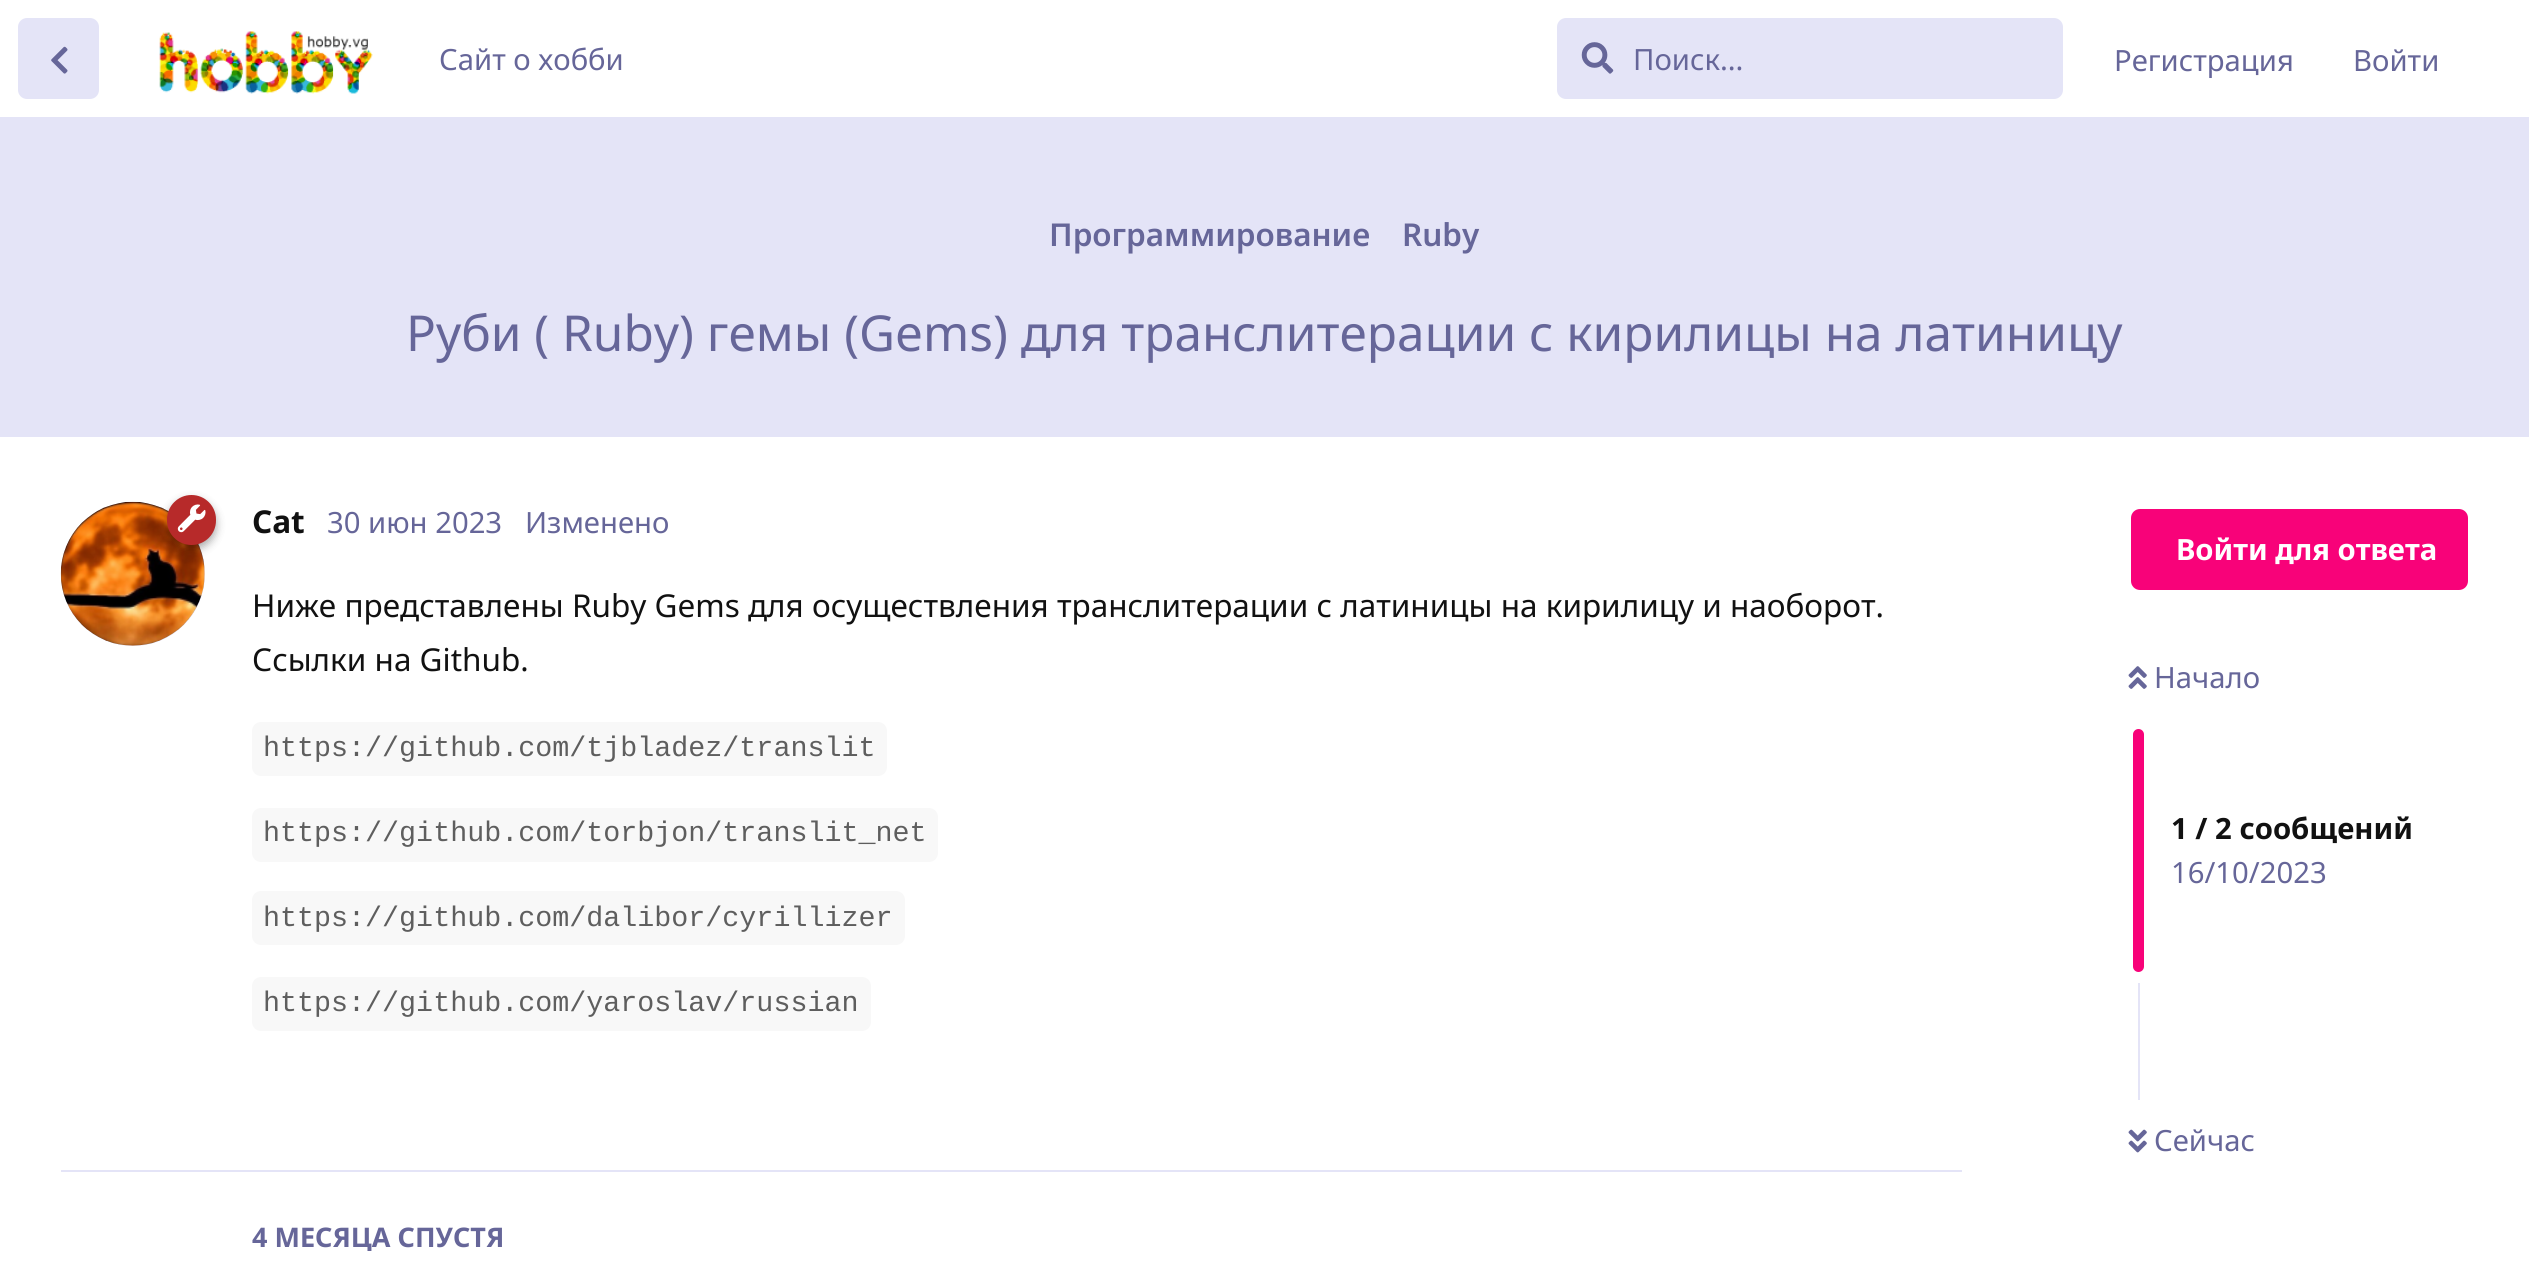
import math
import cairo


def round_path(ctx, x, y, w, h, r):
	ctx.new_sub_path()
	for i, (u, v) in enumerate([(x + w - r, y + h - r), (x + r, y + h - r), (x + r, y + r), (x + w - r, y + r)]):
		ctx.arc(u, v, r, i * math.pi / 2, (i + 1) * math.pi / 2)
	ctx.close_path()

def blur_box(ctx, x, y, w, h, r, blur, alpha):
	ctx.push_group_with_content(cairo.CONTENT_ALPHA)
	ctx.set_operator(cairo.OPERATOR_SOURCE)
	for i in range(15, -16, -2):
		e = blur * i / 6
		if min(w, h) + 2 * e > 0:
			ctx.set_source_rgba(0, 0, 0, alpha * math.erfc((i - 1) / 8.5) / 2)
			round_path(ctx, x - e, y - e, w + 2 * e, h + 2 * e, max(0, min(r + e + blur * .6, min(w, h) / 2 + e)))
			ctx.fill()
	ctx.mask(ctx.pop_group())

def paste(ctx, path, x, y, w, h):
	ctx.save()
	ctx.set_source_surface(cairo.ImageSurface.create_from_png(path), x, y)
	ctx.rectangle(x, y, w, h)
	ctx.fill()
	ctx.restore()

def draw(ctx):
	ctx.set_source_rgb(1, 1, 1)
	ctx.paint()
	ctx.set_source_rgb(0.894, 0.894, 0.965)
	round_path(ctx, 18, 18, 81, 81, 9)
	ctx.fill()
	paste(ctx, 'media/1.png', 51, 46, 17, 28)
	paste(ctx, 'media/2.png', 159, 31, 214, 63)
	ctx.select_font_face('Noto Sans')
	ctx.set_font_size(29.25)
	ctx.set_source_rgb(0.4, 0.4, 0.6)
	ctx.move_to(439, 70)
	ctx.show_text('Сайт о хобби')
	ctx.set_source_rgb(0.894, 0.894, 0.965)
	round_path(ctx, 1557, 18, 506, 81, 9)
	ctx.fill()
	paste(ctx, 'media/3.png', 1581, 42, 33, 32)
	ctx.set_source_rgb(0.4, 0.4, 0.6)
	for x, y, s in [
		(1633, 70, 'Поиск...'),
		(2114, 71, 'Регистрация'),
		(2353, 71, 'Войти'),
	]:
		ctx.move_to(x, y)
		ctx.show_text(s)
	ctx.set_source_rgb(0.894, 0.894, 0.965)
	ctx.rectangle(0, 117, 2529, 320)
	ctx.fill()
	ctx.select_font_face('Noto Sans SemiBold')
	ctx.set_font_size(31.5)
	ctx.set_source_rgb(0.4, 0.4, 0.6)
	ctx.move_to(1049, 246)
	ctx.show_text('Программирование')
	ctx.move_to(1402, 246)
	ctx.show_text('Ruby')
	ctx.select_font_face('Noto Sans')
	ctx.set_font_size(49.5)
	ctx.move_to(406, 351)
	ctx.show_text('Руби ( Ruby) гемы (Gems) для транслитерации с кирилицы на латиницу')
	ctx.set_source_rgb(0.894, 0.894, 0.965)
	ctx.rectangle(61, 1170, 1901, 2)
	ctx.fill()
	ctx.arc(133, 574, 72, 0, 2 * math.pi)
	ctx.fill()
	paste(ctx, 'media/5.png', 60, 501, 145, 145)
	ctx.set_source_rgb(0, 0, 0)
	blur_box(ctx, 167, 500, 49, 49, 24.5, 4.5, 0.35)
	ctx.set_source_rgb(0.718, 0.165, 0.165)
	round_path(ctx, 167, 495, 49, 50, 24.5)
	ctx.fill()
	paste(ctx, 'media/4.png', 177, 504, 29, 29)
	ctx.select_font_face('Noto Sans', cairo.FONT_SLANT_NORMAL, cairo.FONT_WEIGHT_BOLD)
	ctx.set_font_size(31.5)
	ctx.set_source_rgb(0.067, 0.067, 0.067)
	ctx.move_to(252, 533)
	ctx.show_text('Cat')
	ctx.select_font_face('Noto Sans')
	ctx.set_font_size(29.25)
	ctx.set_source_rgb(0.4, 0.4, 0.6)
	ctx.move_to(327, 533)
	ctx.show_text('30 июн 2023')
	ctx.move_to(525, 533)
	ctx.show_text('Изменено')
	ctx.set_font_size(31.5)
	ctx.set_source_rgb(0.067, 0.067, 0.067)
	ctx.move_to(252, 617)
	ctx.show_text('Ниже представлены Ruby Gems для осуществления транслитерации с латиницы на кирилицу и наоборот.')
	ctx.move_to(252, 671)
	ctx.show_text('Ссылки на Github.')
	ctx.set_source_rgb(0.969, 0.969, 0.969)
	round_path(ctx, 252, 722, 635, 54, 9)
	ctx.fill()
	ctx.select_font_face('Liberation Mono')
	ctx.set_font_size(28.35)
	ctx.set_source_rgb(0.369, 0.369, 0.369)
	ctx.move_to(263, 756)
	ctx.show_text('https://github.com/tjbladez/translit')
	ctx.set_source_rgb(0.969, 0.969, 0.969)
	round_path(ctx, 252, 808, 686, 54, 9)
	ctx.fill()
	ctx.set_source_rgb(0.369, 0.369, 0.369)
	ctx.move_to(263, 841)
	ctx.show_text('https://github.com/torbjon/translit_net')
	ctx.set_source_rgb(0.969, 0.969, 0.969)
	round_path(ctx, 252, 891, 653, 54, 9)
	ctx.fill()
	ctx.set_source_rgb(0.369, 0.369, 0.369)
	ctx.move_to(263, 926)
	ctx.show_text('https://github.com/dalibor/cyrillizer')
	ctx.set_source_rgb(0.969, 0.969, 0.969)
	round_path(ctx, 252, 977, 619, 54, 9)
	ctx.fill()
	ctx.set_source_rgb(0.369, 0.369, 0.369)
	ctx.move_to(263, 1011)
	ctx.show_text('https://github.com/yaroslav/russian')
	ctx.select_font_face('Noto Sans', cairo.FONT_SLANT_NORMAL, cairo.FONT_WEIGHT_BOLD)
	ctx.set_font_size(27)
	ctx.set_source_rgb(0.4, 0.4, 0.6)
	ctx.move_to(252, 1247)
	ctx.show_text('4 МЕСЯЦА СПУСТЯ')
	ctx.set_source_rgb(0.969, 0.008, 0.475)
	round_path(ctx, 2131, 509, 337, 81, 9)
	ctx.fill()
	ctx.set_font_size(29.25)
	ctx.set_source_rgb(1, 1, 1)
	ctx.move_to(2176, 560)
	ctx.show_text('Войти для ответа')
	paste(ctx, 'media/6.png', 2128, 666, 19, 23)
	ctx.select_font_face('Noto Sans')
	ctx.set_source_rgb(0.4, 0.4, 0.6)
	ctx.move_to(2154, 688)
	ctx.show_text('Начало')
	ctx.set_source_rgb(0.969, 0.008, 0.475)
	round_path(ctx, 2133, 729, 11, 243, 5.5)
	ctx.fill()
	ctx.select_font_face('Noto Sans', cairo.FONT_SLANT_NORMAL, cairo.FONT_WEIGHT_BOLD)
	ctx.set_source_rgb(0.067, 0.067, 0.067)
	ctx.move_to(2171, 839)
	ctx.show_text('1 / 2 сообщений')
	ctx.select_font_face('Noto Sans')
	ctx.set_source_rgb(0.4, 0.4, 0.6)
	ctx.move_to(2171, 883)
	ctx.show_text('16/10/2023')
	ctx.set_source_rgb(0.894, 0.894, 0.965)
	ctx.rectangle(2138, 983, 2, 117)
	ctx.fill()
	paste(ctx, 'media/7.png', 2128, 1129, 19, 24)
	ctx.set_source_rgb(0.4, 0.4, 0.6)
	ctx.move_to(2154, 1151)
	ctx.show_text('Сейчас')


surface = cairo.ImageSurface(cairo.FORMAT_RGB24, 2529, 1274)
ctx = cairo.Context(surface)
options = cairo.FontOptions()
options.set_hint_metrics(cairo.HINT_METRICS_OFF)
options.set_hint_style(cairo.HINT_STYLE_NONE)
ctx.set_font_options(options)
ctx.set_miter_limit(4)
draw(ctx)
surface.write_to_png('image.png')
